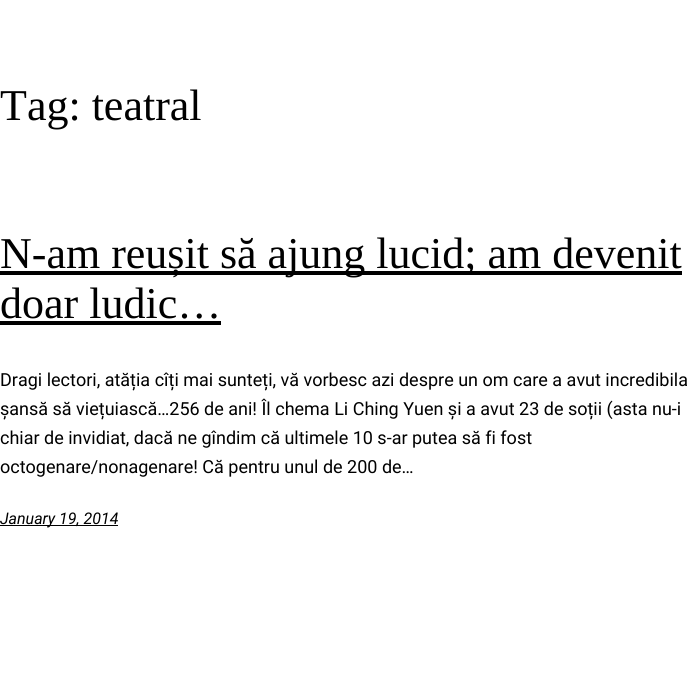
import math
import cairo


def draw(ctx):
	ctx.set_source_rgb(1, 1, 1)
	ctx.paint()
	ctx.select_font_face('Liberation Serif')
	ctx.set_font_size(44)
	ctx.set_source_rgb(0, 0, 0)
	ctx.move_to(0, 120)
	ctx.show_text('Tag: teatral')
	ctx.rectangle(0, 271, 682, 4)
	ctx.fill()
	ctx.move_to(0, 268)
	ctx.show_text('N-am reușit să ajung lucid; am devenit')
	ctx.move_to(0, 318)
	ctx.show_text('doar ludic…')
	ctx.rectangle(0, 321, 221, 4)
	ctx.fill()
	ctx.select_font_face('Roboto')
	ctx.set_font_size(18)
	for x, y, s in [
		(0, 386, 'Dragi lectori, atăția cîți mai sunteți, vă vorbesc azi despre un om care a avut incredibila'),
		(0, 415, 'șansă să viețuiască…256 de ani! Îl chema Li Ching Yuen și a avut 23 de soții (asta nu-i'),
		(0, 444, 'chiar de invidiat, dacă ne gîndim că ultimele 10 s-ar putea să fi fost'),
		(0, 473, 'octogenare/nonagenare! Că pentru unul de 200 de…'),
	]:
		ctx.move_to(x, y)
		ctx.show_text(s)
	ctx.rectangle(0, 525, 118, 1)
	ctx.fill()
	ctx.select_font_face('Roboto', cairo.FONT_SLANT_ITALIC)
	ctx.set_font_size(16)
	ctx.move_to(0, 524)
	ctx.show_text('January 19, 2014')


surface = cairo.ImageSurface(cairo.FORMAT_RGB24, 699, 692)
ctx = cairo.Context(surface)
options = cairo.FontOptions()
options.set_hint_metrics(cairo.HINT_METRICS_OFF)
options.set_hint_style(cairo.HINT_STYLE_NONE)
ctx.set_font_options(options)
ctx.set_miter_limit(4)
draw(ctx)
surface.write_to_png('image.png')
